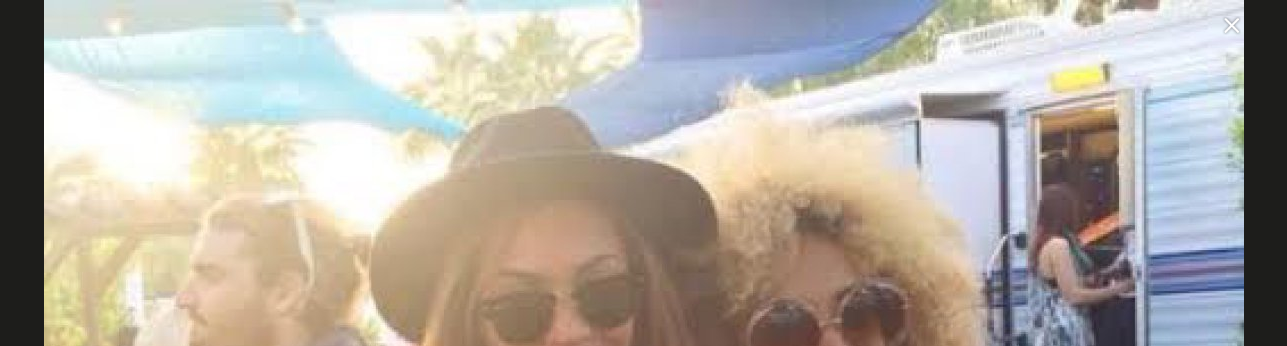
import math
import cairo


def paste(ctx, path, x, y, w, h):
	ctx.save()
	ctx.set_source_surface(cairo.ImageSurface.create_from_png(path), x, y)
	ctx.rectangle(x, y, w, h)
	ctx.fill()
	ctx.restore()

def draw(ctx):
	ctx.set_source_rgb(0.114, 0.114, 0.106)
	ctx.paint()
	paste(ctx, 'media/1.png', 44, 0, 1200, 346)
	paste(ctx, 'media/2.png', 1222, 16, 19, 19)


surface = cairo.ImageSurface(cairo.FORMAT_RGB24, 1287, 346)
ctx = cairo.Context(surface)
options = cairo.FontOptions()
options.set_hint_metrics(cairo.HINT_METRICS_OFF)
options.set_hint_style(cairo.HINT_STYLE_NONE)
ctx.set_font_options(options)
ctx.set_miter_limit(4)
draw(ctx)
surface.write_to_png('image.png')
